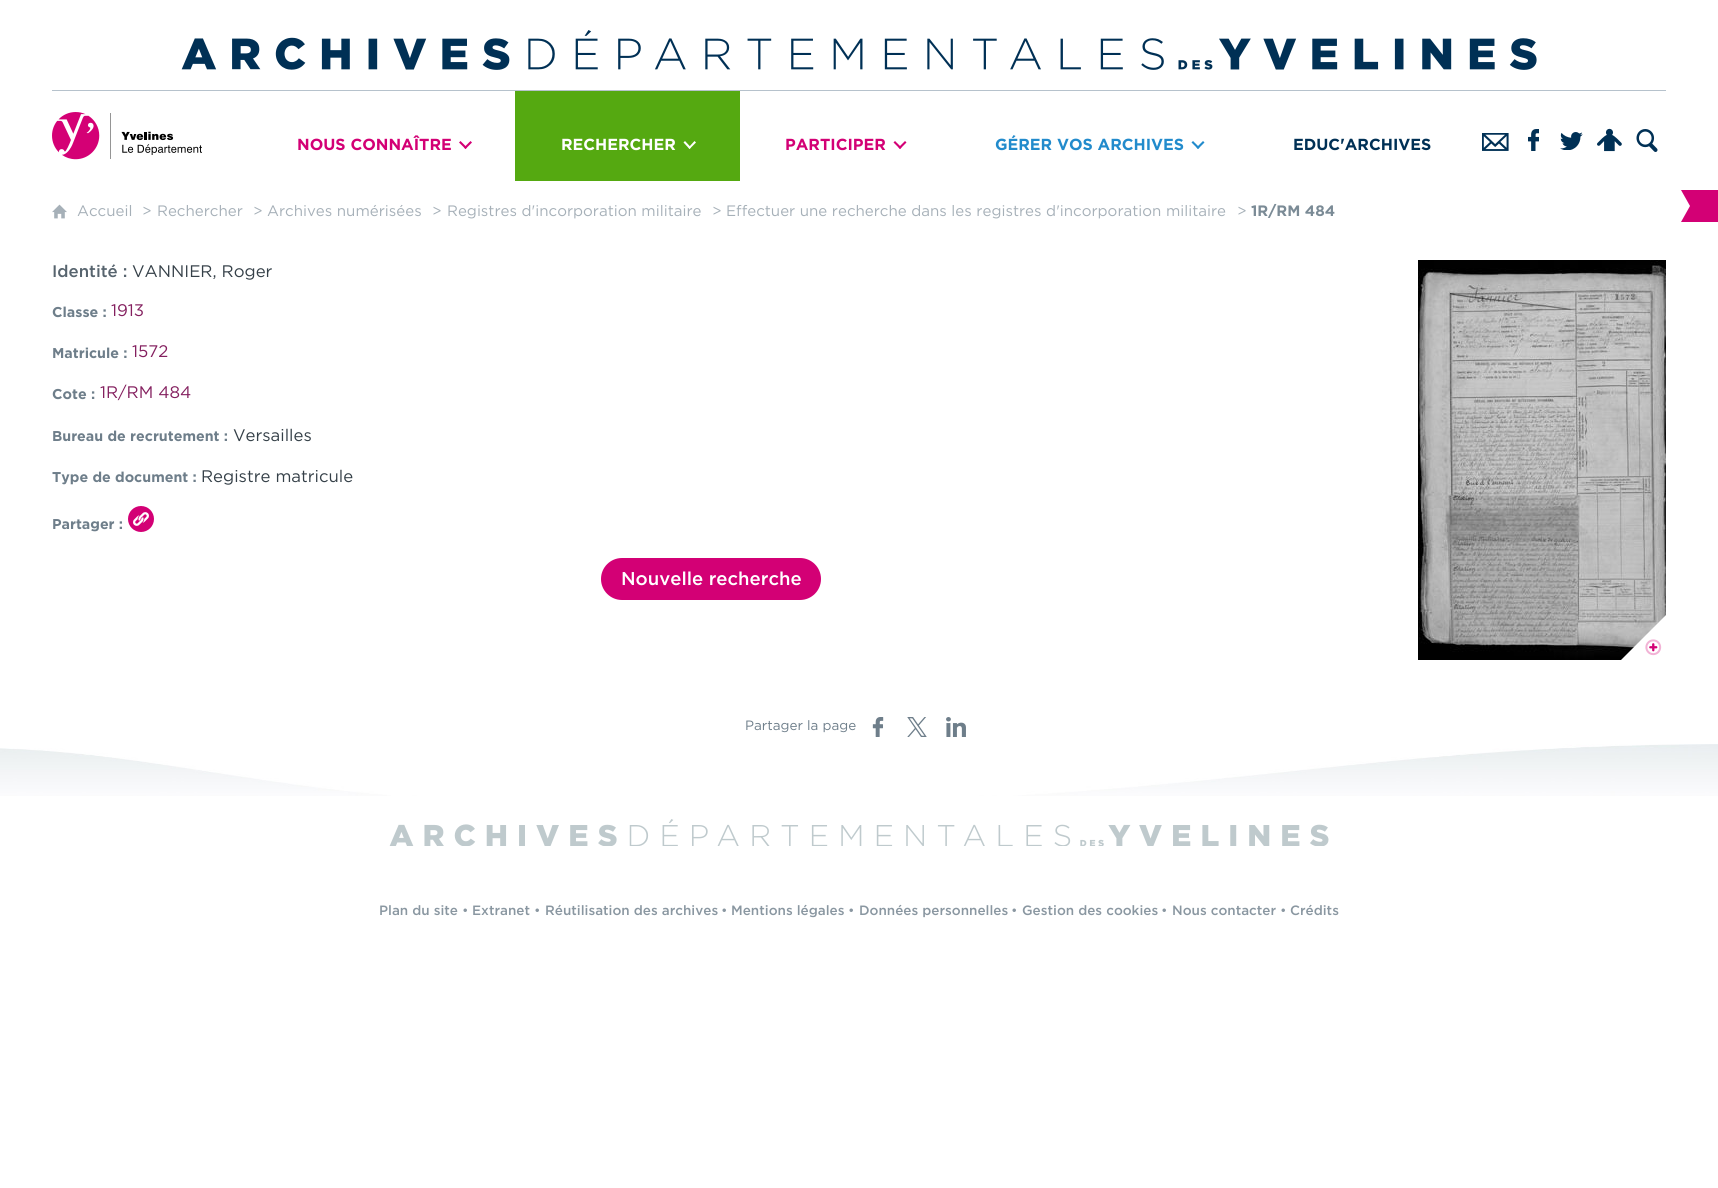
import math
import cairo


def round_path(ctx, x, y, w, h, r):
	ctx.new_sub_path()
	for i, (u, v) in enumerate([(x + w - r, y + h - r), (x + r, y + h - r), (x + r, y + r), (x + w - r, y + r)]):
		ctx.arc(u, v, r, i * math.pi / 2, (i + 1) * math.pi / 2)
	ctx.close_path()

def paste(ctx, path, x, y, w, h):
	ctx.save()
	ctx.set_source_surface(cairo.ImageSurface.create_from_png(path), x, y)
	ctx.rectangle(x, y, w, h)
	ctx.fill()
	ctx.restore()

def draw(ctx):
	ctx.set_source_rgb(1, 1, 1)
	ctx.paint()
	paste(ctx, 'media/1.png', 181, 30, 1356, 40)
	ctx.set_source_rgb(0.714, 0.761, 0.8)
	ctx.rectangle(52, 90, 1614, 1)
	ctx.fill()
	paste(ctx, 'media/2.png', 52, 112, 150, 48)
	ctx.select_font_face('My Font', cairo.FONT_SLANT_NORMAL, cairo.FONT_WEIGHT_BOLD)
	ctx.set_font_size(16)
	ctx.set_source_rgb(0.827, 0, 0.459)
	ctx.move_to(297, 150)
	ctx.show_text('NOUS CONNAÎTRE')
	ctx.new_path()
	ctx.move_to(470.5, 141)
	ctx.line_to(472, 142.5)
	ctx.line_to(465.5, 149)
	ctx.line_to(464, 147.5)
	ctx.close_path()
	ctx.fill()
	ctx.new_path()
	ctx.move_to(460.5, 141)
	ctx.line_to(467, 147.5)
	ctx.line_to(465.5, 149)
	ctx.line_to(459, 142.5)
	ctx.close_path()
	ctx.fill()
	ctx.set_source_rgb(0.333, 0.663, 0.067)
	ctx.rectangle(515, 91, 225, 90)
	ctx.fill()
	ctx.set_source_rgb(1, 1, 1)
	ctx.move_to(561, 150)
	ctx.show_text('RECHERCHER')
	ctx.new_path()
	ctx.move_to(694.5, 141)
	ctx.line_to(696, 142.5)
	ctx.line_to(689.5, 149)
	ctx.line_to(688.5, 147.5)
	ctx.close_path()
	ctx.fill()
	ctx.new_path()
	ctx.move_to(685, 141)
	ctx.line_to(691, 147.5)
	ctx.line_to(689.5, 149)
	ctx.line_to(683.5, 142.5)
	ctx.close_path()
	ctx.fill()
	ctx.set_source_rgb(0.827, 0, 0.459)
	ctx.move_to(785, 150)
	ctx.show_text('PARTICIPER')
	ctx.new_path()
	ctx.move_to(905, 141)
	ctx.line_to(906.5, 142.5)
	ctx.line_to(900, 149)
	ctx.line_to(898.5, 147.5)
	ctx.close_path()
	ctx.fill()
	ctx.new_path()
	ctx.move_to(895, 141)
	ctx.line_to(901.5, 147.5)
	ctx.line_to(900, 149)
	ctx.line_to(893.5, 142.5)
	ctx.close_path()
	ctx.fill()
	ctx.set_source_rgb(0.133, 0.545, 0.8)
	ctx.move_to(995, 150)
	ctx.show_text('GÉRER VOS ARCHIVES')
	ctx.new_path()
	ctx.move_to(1203, 141)
	ctx.line_to(1204.5, 142.5)
	ctx.line_to(1198, 149)
	ctx.line_to(1196.5, 147.5)
	ctx.close_path()
	ctx.fill()
	ctx.new_path()
	ctx.move_to(1193, 141)
	ctx.line_to(1199.5, 147.5)
	ctx.line_to(1198, 149)
	ctx.line_to(1191.5, 142.5)
	ctx.close_path()
	ctx.fill()
	ctx.set_source_rgb(0, 0.188, 0.333)
	ctx.move_to(1293, 150)
	ctx.show_text('EDUC\'ARCHIVES')
	paste(ctx, 'media/3.png', 1482, 133, 27, 18)
	paste(ctx, 'media/4.png', 1528, 129, 11, 22)
	paste(ctx, 'media/5.png', 1560, 132, 23, 18)
	paste(ctx, 'media/6.png', 1597, 128, 25, 24)
	paste(ctx, 'media/7.png', 1636, 129, 22, 23)
	paste(ctx, 'media/8.png', 52, 204, 15, 15)
	ctx.select_font_face('Gotham')
	ctx.set_font_size(15.1)
	ctx.set_source_rgb(0.651, 0.69, 0.722)
	for x, y, s in [
		(77, 216, 'Accueil'),
		(142, 216, '>'),
		(157, 216, 'Rechercher'),
		(253, 216, '>'),
		(267, 216, 'Archives numérisées'),
		(432, 216, '>'),
		(447, 216, 'Registres d\'incorporation militaire'),
		(712, 216, '>'),
		(726, 216, 'Effectuer une recherche dans les registres d\'incorporation militaire'),
		(1237, 216, '>'),
	]:
		ctx.move_to(x, y)
		ctx.show_text(s)
	ctx.select_font_face('My Font', cairo.FONT_SLANT_NORMAL, cairo.FONT_WEIGHT_BOLD)
	ctx.set_source_rgb(0.482, 0.545, 0.588)
	ctx.move_to(1251, 216)
	ctx.show_text('1R/RM 484')
	ctx.select_font_face('Gotham Medium')
	ctx.set_font_size(16.75)
	ctx.set_source_rgb(0.341, 0.392, 0.431)
	ctx.move_to(52, 277)
	ctx.show_text('Identité :')
	ctx.select_font_face('Gotham')
	ctx.set_source_rgb(0.208, 0.251, 0.282)
	ctx.move_to(132, 277)
	ctx.show_text('VANNIER, Roger')
	paste(ctx, 'media/9.png', 1418, 260, 248, 400)
	ctx.set_source_rgb(1, 1, 1)
	ctx.new_path()
	ctx.move_to(1666, 660)
	ctx.line_to(1621, 660)
	ctx.line_to(1666, 615)
	ctx.close_path()
	ctx.fill()
	paste(ctx, 'media/10.png', 1645, 639, 17, 17)
	ctx.select_font_face('My Font', cairo.FONT_SLANT_NORMAL, cairo.FONT_WEIGHT_BOLD)
	ctx.set_font_size(14.25)
	ctx.set_source_rgb(0.431, 0.494, 0.541)
	ctx.move_to(52, 317)
	ctx.show_text('Classe :')
	ctx.select_font_face('Gotham')
	ctx.set_font_size(16.75)
	ctx.set_source_rgb(0.518, 0.125, 0.373)
	ctx.move_to(111, 316)
	ctx.show_text('1913')
	ctx.select_font_face('My Font', cairo.FONT_SLANT_NORMAL, cairo.FONT_WEIGHT_BOLD)
	ctx.set_font_size(14.25)
	ctx.set_source_rgb(0.431, 0.494, 0.541)
	ctx.move_to(52, 358)
	ctx.show_text('Matricule :')
	ctx.select_font_face('Gotham')
	ctx.set_font_size(16.75)
	ctx.set_source_rgb(0.518, 0.125, 0.373)
	ctx.move_to(132, 357)
	ctx.show_text('1572')
	ctx.select_font_face('My Font', cairo.FONT_SLANT_NORMAL, cairo.FONT_WEIGHT_BOLD)
	ctx.set_font_size(14.25)
	ctx.set_source_rgb(0.431, 0.494, 0.541)
	ctx.move_to(52, 399)
	ctx.show_text('Cote :')
	ctx.select_font_face('Gotham')
	ctx.set_font_size(16.75)
	ctx.set_source_rgb(0.518, 0.125, 0.373)
	ctx.move_to(100, 398)
	ctx.show_text('1R/RM 484')
	ctx.select_font_face('My Font', cairo.FONT_SLANT_NORMAL, cairo.FONT_WEIGHT_BOLD)
	ctx.set_font_size(14.25)
	ctx.set_source_rgb(0.431, 0.494, 0.541)
	ctx.move_to(52, 441)
	ctx.show_text('Bureau de recrutement :')
	ctx.select_font_face('Gotham')
	ctx.set_font_size(16.75)
	ctx.set_source_rgb(0.208, 0.251, 0.282)
	ctx.move_to(233, 441)
	ctx.show_text('Versailles')
	ctx.select_font_face('My Font', cairo.FONT_SLANT_NORMAL, cairo.FONT_WEIGHT_BOLD)
	ctx.set_font_size(14.25)
	ctx.set_source_rgb(0.431, 0.494, 0.541)
	ctx.move_to(52, 482)
	ctx.show_text('Type de document :')
	ctx.select_font_face('Gotham')
	ctx.set_font_size(16.75)
	ctx.set_source_rgb(0.208, 0.251, 0.282)
	ctx.move_to(201, 482)
	ctx.show_text('Registre matricule')
	ctx.select_font_face('My Font', cairo.FONT_SLANT_NORMAL, cairo.FONT_WEIGHT_BOLD)
	ctx.set_font_size(14.25)
	ctx.set_source_rgb(0.431, 0.494, 0.541)
	ctx.move_to(52, 529)
	ctx.show_text('Partager :')
	ctx.set_source_rgb(0.827, 0, 0.459)
	ctx.new_path()
	ctx.arc(141, 519, 13, 0, 2 * math.pi)
	ctx.fill()
	paste(ctx, 'media/11.png', 133, 512, 16, 14)
	round_path(ctx, 601, 558, 220, 42, 21)
	ctx.fill()
	ctx.select_font_face('Gotham Medium')
	ctx.set_font_size(18.5)
	ctx.set_source_rgb(1, 1, 1)
	ctx.move_to(621, 585)
	ctx.show_text('Nouvelle recherche')
	ctx.set_source_rgb(0.827, 0, 0.459)
	ctx.new_path()
	ctx.move_to(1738, 222)
	ctx.line_to(1681, 222)
	ctx.line_to(1690, 206)
	ctx.line_to(1681, 190)
	ctx.line_to(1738, 190)
	ctx.close_path()
	ctx.fill()
	ctx.select_font_face('Gotham')
	ctx.set_font_size(13.5)
	ctx.set_source_rgb(0.431, 0.494, 0.541)
	ctx.move_to(745, 730)
	ctx.show_text('Partager la page')
	paste(ctx, 'media/12.png', 872, 717, 12, 20)
	paste(ctx, 'media/13.png', 907, 717, 20, 20)
	paste(ctx, 'media/14.png', 946, 717, 20, 20)
	paste(ctx, 'media/15.png', 0, 744, 1718, 52)
	paste(ctx, 'media/16.png', 389, 819, 940, 27)
	ctx.select_font_face('Gotham Medium')
	ctx.set_source_rgb(0.541, 0.592, 0.631)
	ctx.move_to(379, 915)
	ctx.show_text('Plan du site')
	ctx.select_font_face('Gotham')
	ctx.move_to(462, 915)
	ctx.show_text('•')
	ctx.select_font_face('Gotham Medium')
	ctx.move_to(472, 915)
	ctx.show_text('Extranet')
	ctx.select_font_face('Gotham')
	ctx.move_to(534, 915)
	ctx.show_text('•')
	ctx.select_font_face('Gotham Medium')
	ctx.move_to(545, 915)
	ctx.show_text('Réutilisation des archives')
	ctx.select_font_face('Gotham')
	ctx.move_to(721, 915)
	ctx.show_text('•')
	ctx.select_font_face('Gotham Medium')
	ctx.move_to(731, 915)
	ctx.show_text('Mentions légales')
	ctx.select_font_face('Gotham')
	ctx.move_to(848, 915)
	ctx.show_text('•')
	ctx.select_font_face('Gotham Medium')
	ctx.move_to(859, 915)
	ctx.show_text('Données personnelles')
	ctx.select_font_face('Gotham')
	ctx.move_to(1011, 915)
	ctx.show_text('•')
	ctx.select_font_face('Gotham Medium')
	ctx.move_to(1022, 915)
	ctx.show_text('Gestion des cookies')
	ctx.select_font_face('Gotham')
	ctx.move_to(1161, 915)
	ctx.show_text('•')
	ctx.select_font_face('Gotham Medium')
	ctx.move_to(1172, 915)
	ctx.show_text('Nous contacter')
	ctx.select_font_face('Gotham')
	ctx.move_to(1280, 915)
	ctx.show_text('•')
	ctx.select_font_face('Gotham Medium')
	ctx.move_to(1290, 915)
	ctx.show_text('Crédits')


surface = cairo.ImageSurface(cairo.FORMAT_RGB24, 1718, 1188)
ctx = cairo.Context(surface)
options = cairo.FontOptions()
options.set_hint_metrics(cairo.HINT_METRICS_OFF)
options.set_hint_style(cairo.HINT_STYLE_NONE)
ctx.set_font_options(options)
ctx.set_miter_limit(4)
draw(ctx)
surface.write_to_png('image.png')
